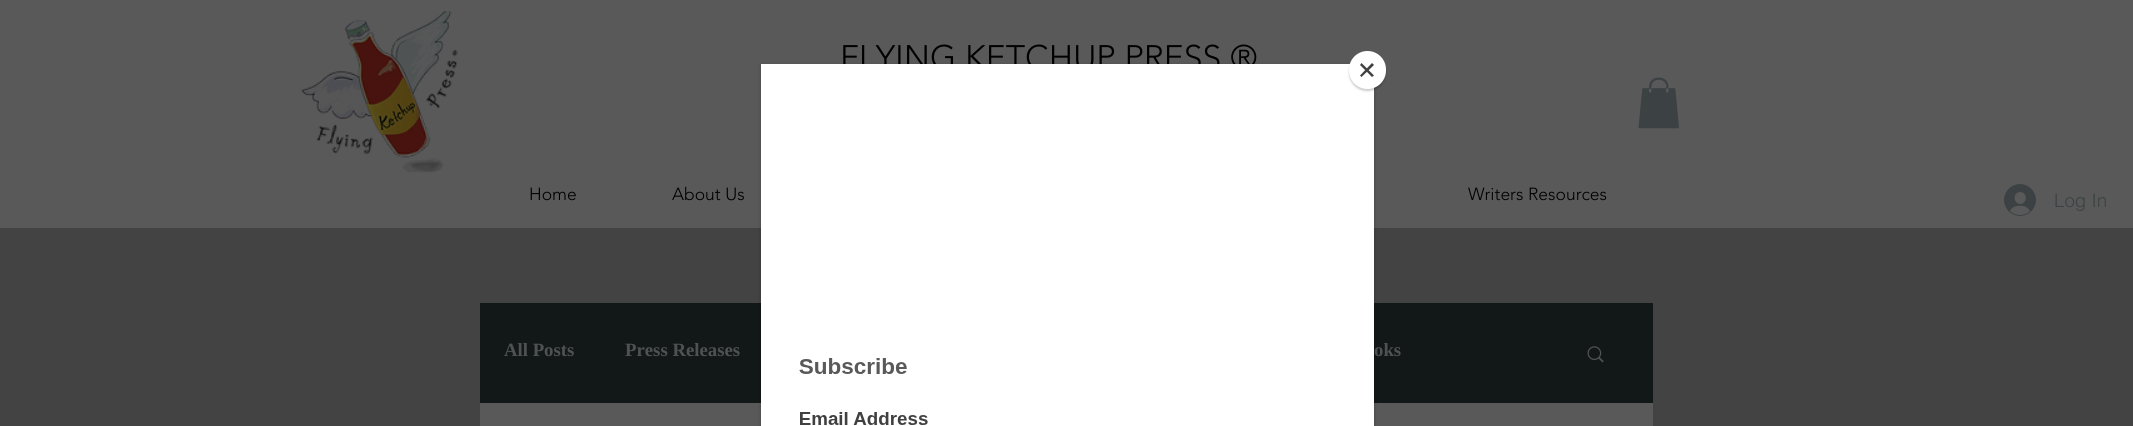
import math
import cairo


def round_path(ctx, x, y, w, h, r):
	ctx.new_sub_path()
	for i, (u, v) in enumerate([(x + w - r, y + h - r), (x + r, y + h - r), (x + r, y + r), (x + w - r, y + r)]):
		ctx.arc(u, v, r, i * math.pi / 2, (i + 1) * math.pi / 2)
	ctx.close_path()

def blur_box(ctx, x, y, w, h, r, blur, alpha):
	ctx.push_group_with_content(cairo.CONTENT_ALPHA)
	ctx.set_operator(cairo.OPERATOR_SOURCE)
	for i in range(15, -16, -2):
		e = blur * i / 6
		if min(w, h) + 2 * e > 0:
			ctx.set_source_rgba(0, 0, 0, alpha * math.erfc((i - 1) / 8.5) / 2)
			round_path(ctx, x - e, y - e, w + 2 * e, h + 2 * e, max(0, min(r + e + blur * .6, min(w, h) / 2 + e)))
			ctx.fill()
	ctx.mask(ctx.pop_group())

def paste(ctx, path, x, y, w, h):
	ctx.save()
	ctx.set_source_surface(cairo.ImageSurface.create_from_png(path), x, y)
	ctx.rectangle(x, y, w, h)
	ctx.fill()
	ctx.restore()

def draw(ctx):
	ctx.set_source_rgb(0.263, 0.263, 0.263)
	ctx.paint()
	ctx.set_source_rgb(0.349, 0.349, 0.349)
	ctx.rectangle(0, 0, 2133, 228)
	ctx.fill()
	paste(ctx, 'media/1.png', 301, 11, 157, 162)
	ctx.select_font_face('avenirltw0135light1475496 Light')
	ctx.set_font_size(33.75)
	ctx.set_source_rgb(0, 0, 0)
	ctx.move_to(840, 69)
	ctx.show_text('FLYING KETCHUP PRESS ®')
	paste(ctx, 'media/2.png', 1638, 77, 41, 52)
	ctx.set_font_size(17.5)
	for x, y, s in [
		(529, 200, 'Home'),
		(672, 200, 'About Us'),
		(1468, 200, 'Writers Resources'),
	]:
		ctx.move_to(x, y)
		ctx.show_text(s)
	paste(ctx, 'media/3.png', 2004, 184, 32, 32)
	ctx.select_font_face('helvetica Light')
	ctx.set_font_size(18.75)
	ctx.set_source_rgb(0.231, 0.259, 0.263)
	ctx.move_to(2054, 207)
	ctx.show_text('Log In')
	ctx.set_source_rgb(0.349, 0.349, 0.349)
	ctx.rectangle(480, 403, 1173, 23)
	ctx.fill()
	ctx.set_source_rgb(0.071, 0.09, 0.094)
	ctx.rectangle(480, 303, 1173, 100)
	ctx.fill()
	ctx.select_font_face('Liberation Serif', cairo.FONT_SLANT_NORMAL, cairo.FONT_WEIGHT_BOLD)
	ctx.set_source_rgb(0.31, 0.322, 0.322)
	for x, y, s in [
		(504, 356, 'All Posts'),
		(625, 356, 'Press Releases'),
		(1374, 356, 'oks'),
	]:
		ctx.move_to(x, y)
		ctx.show_text(s)
	paste(ctx, 'media/4.png', 1587, 346, 17, 17)
	ctx.set_source_rgb(0, 0, 0)
	blur_box(ctx, 761, 66, 613, 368, 0, 2.5, 0.2)
	paste(ctx, 'media/5.png', 761, 64, 613, 362)
	blur_box(ctx, 1349, 54, 37, 37, 18.5, 1, 0.2)
	ctx.set_source_rgb(1, 1, 1)
	round_path(ctx, 1349, 51, 37, 38, 18.5)
	ctx.fill()
	ctx.set_source_rgb(0.255, 0.255, 0.255)
	ctx.new_path()
	ctx.move_to(1372, 63)
	ctx.line_to(1374, 65)
	ctx.line_to(1361.5, 77)
	ctx.line_to(1360, 75.5)
	ctx.close_path()
	ctx.fill()
	ctx.new_path()
	ctx.move_to(1360, 65)
	ctx.line_to(1361.5, 63)
	ctx.line_to(1374, 75.5)
	ctx.line_to(1372, 77)
	ctx.close_path()
	ctx.fill()


surface = cairo.ImageSurface(cairo.FORMAT_RGB24, 2133, 426)
ctx = cairo.Context(surface)
options = cairo.FontOptions()
options.set_hint_metrics(cairo.HINT_METRICS_OFF)
options.set_hint_style(cairo.HINT_STYLE_NONE)
ctx.set_font_options(options)
ctx.set_miter_limit(4)
draw(ctx)
surface.write_to_png('image.png')
